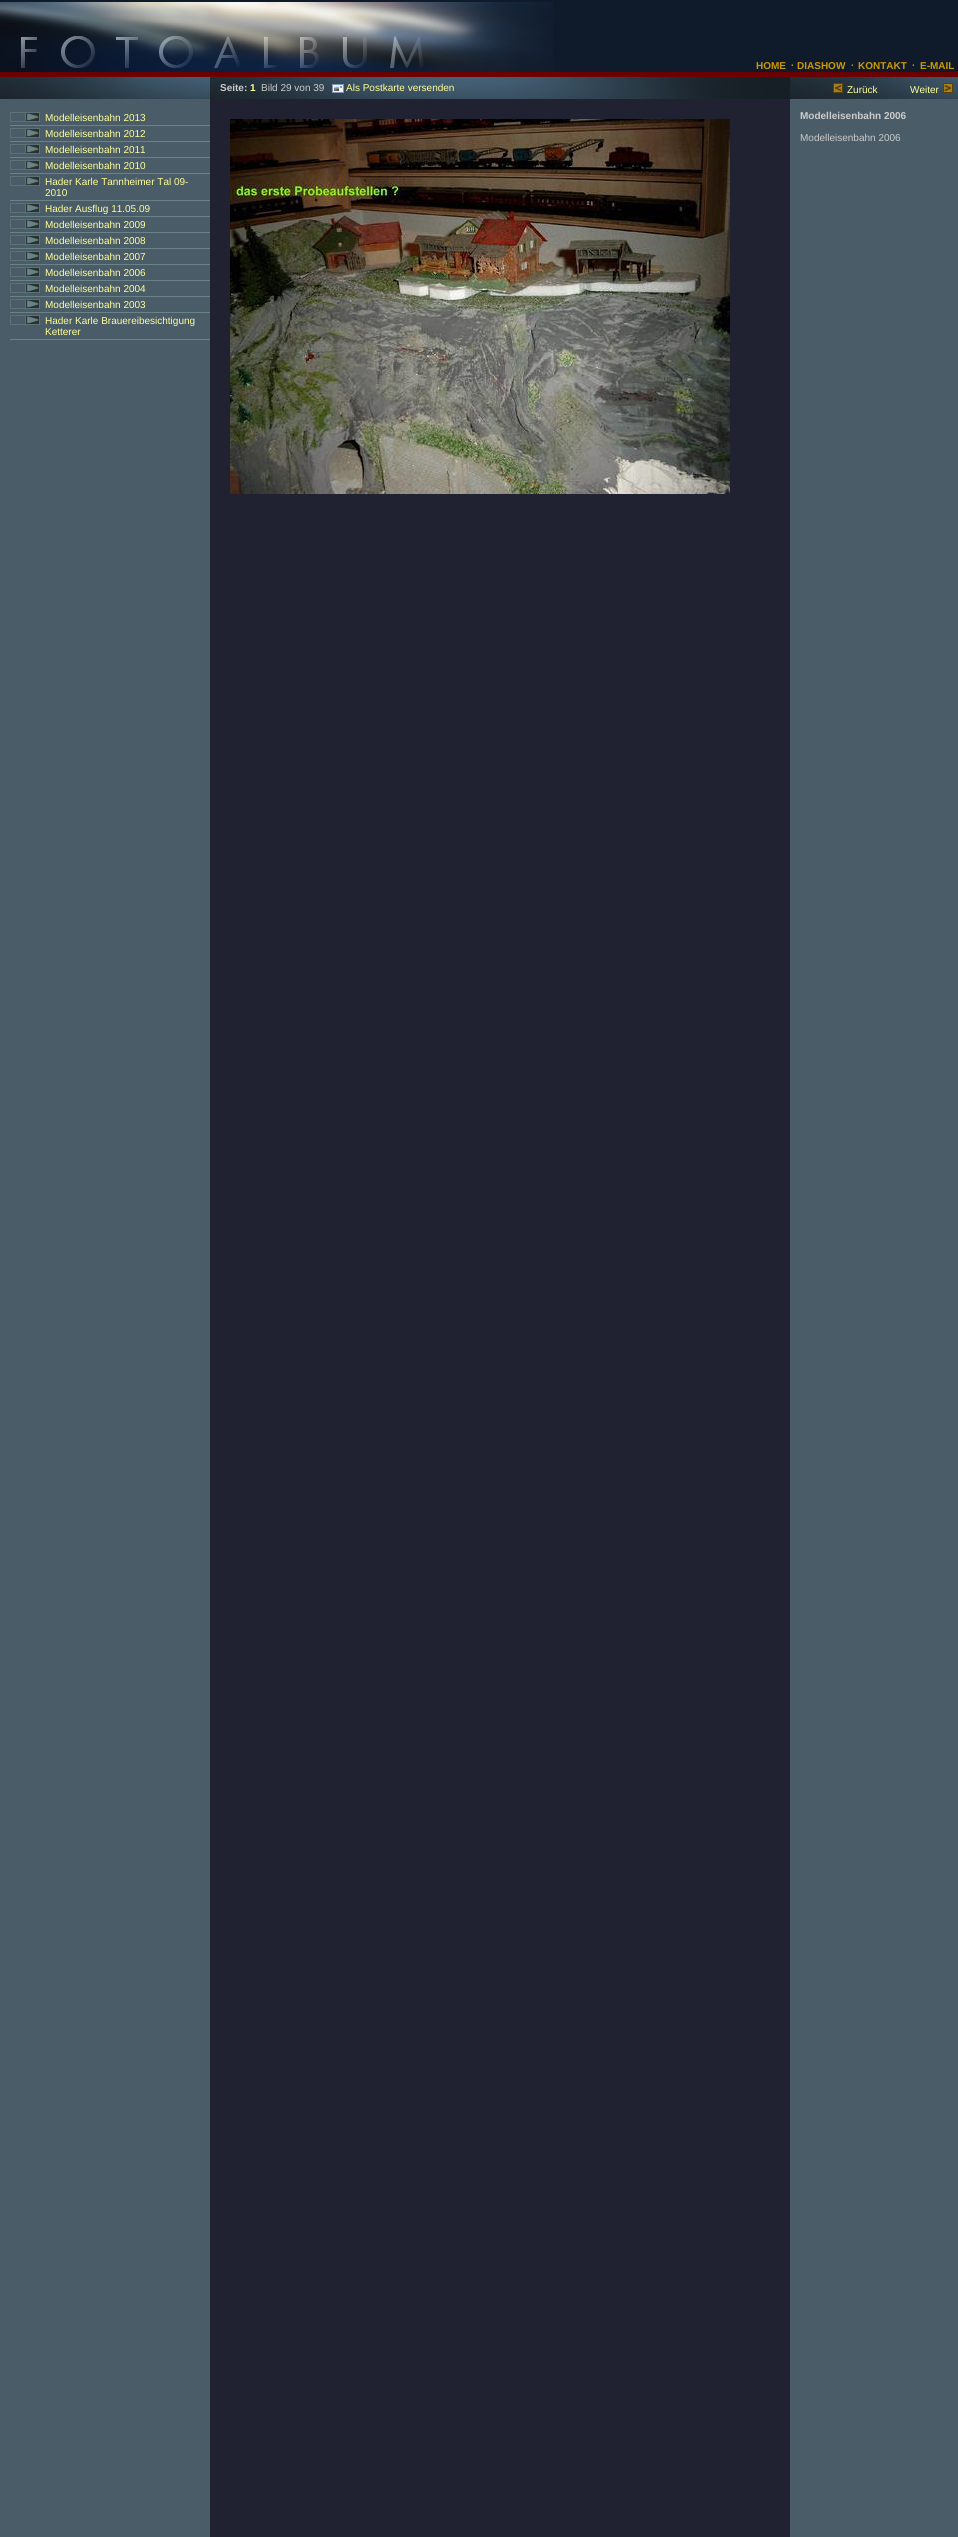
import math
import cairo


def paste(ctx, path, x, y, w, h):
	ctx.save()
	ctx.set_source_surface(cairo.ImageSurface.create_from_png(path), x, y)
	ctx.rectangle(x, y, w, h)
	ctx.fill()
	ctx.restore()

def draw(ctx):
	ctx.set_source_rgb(0.059, 0.106, 0.169)
	ctx.paint()
	ctx.set_source_rgb(0.416, 0, 0)
	ctx.rectangle(0, 72, 958, 5)
	ctx.fill()
	paste(ctx, 'media/1.png', 0, 2, 553, 70)
	ctx.select_font_face('Liberation Sans', cairo.FONT_SLANT_NORMAL, cairo.FONT_WEIGHT_BOLD)
	ctx.set_font_size(10)
	ctx.set_source_rgb(0.8, 0.6, 0)
	ctx.move_to(756, 69)
	ctx.show_text('HOME')
	ctx.select_font_face('Liberation Sans')
	ctx.set_font_size(14)
	ctx.move_to(790, 69)
	ctx.show_text('·')
	ctx.select_font_face('Liberation Sans', cairo.FONT_SLANT_NORMAL, cairo.FONT_WEIGHT_BOLD)
	ctx.set_font_size(10)
	ctx.move_to(797, 69)
	ctx.show_text('DIASHOW')
	ctx.select_font_face('Liberation Sans')
	ctx.set_font_size(14)
	ctx.move_to(850, 69)
	ctx.show_text('·')
	ctx.select_font_face('Liberation Sans', cairo.FONT_SLANT_NORMAL, cairo.FONT_WEIGHT_BOLD)
	ctx.set_font_size(10)
	ctx.move_to(858, 69)
	ctx.show_text('KONTAKT')
	ctx.select_font_face('Liberation Sans')
	ctx.set_font_size(14)
	ctx.move_to(911, 69)
	ctx.show_text('·')
	ctx.select_font_face('Liberation Sans', cairo.FONT_SLANT_NORMAL, cairo.FONT_WEIGHT_BOLD)
	ctx.set_font_size(10)
	ctx.move_to(920, 69)
	ctx.show_text('E-MAIL')
	paste(ctx, 'media/2.png', 0, 77, 210, 22)
	paste(ctx, 'media/3.png', 210, 77, 580, 22)
	ctx.set_source_rgb(0.8, 0.8, 0.8)
	ctx.move_to(220, 91)
	ctx.show_text('Seite:')
	ctx.set_source_rgb(1, 1, 0.6)
	ctx.move_to(250, 91)
	ctx.show_text('1')
	ctx.select_font_face('Liberation Sans')
	ctx.set_source_rgb(0.8, 0.8, 0.8)
	ctx.move_to(261, 91)
	ctx.show_text('Bild 29 von 39')
	paste(ctx, 'media/4.png', 332, 84, 12, 9)
	ctx.set_source_rgb(1, 1, 0.6)
	ctx.move_to(346, 91)
	ctx.show_text('Als Postkarte versenden')
	paste(ctx, 'media/5.png', 790, 77, 168, 22)
	paste(ctx, 'media/6.png', 833, 83, 10, 10)
	ctx.move_to(847, 93)
	ctx.show_text('Zurück')
	ctx.move_to(910, 93)
	ctx.show_text('Weiter')
	paste(ctx, 'media/7.png', 943, 83, 10, 10)
	ctx.set_source_rgb(0.286, 0.361, 0.404)
	ctx.rectangle(0, 99, 210, 2438)
	ctx.fill()
	ctx.set_source_rgb(0.416, 0.514, 0.525)
	ctx.rectangle(10, 125, 200, 1)
	ctx.fill()
	paste(ctx, 'media/8.png', 10, 112, 30, 10)
	ctx.set_source_rgb(1, 1, 0.6)
	ctx.move_to(45, 121)
	ctx.show_text('Modelleisenbahn 2013')
	ctx.set_source_rgb(0.416, 0.514, 0.525)
	ctx.rectangle(10, 141, 200, 1)
	ctx.fill()
	paste(ctx, 'media/8.png', 10, 128, 30, 10)
	ctx.set_source_rgb(1, 1, 0.6)
	ctx.move_to(45, 137)
	ctx.show_text('Modelleisenbahn 2012')
	ctx.set_source_rgb(0.416, 0.514, 0.525)
	ctx.rectangle(10, 157, 200, 1)
	ctx.fill()
	paste(ctx, 'media/8.png', 10, 144, 30, 10)
	ctx.set_source_rgb(1, 1, 0.6)
	ctx.move_to(45, 153)
	ctx.show_text('Modelleisenbahn 2011')
	ctx.set_source_rgb(0.416, 0.514, 0.525)
	ctx.rectangle(10, 173, 200, 1)
	ctx.fill()
	paste(ctx, 'media/8.png', 10, 160, 30, 10)
	ctx.set_source_rgb(1, 1, 0.6)
	ctx.move_to(45, 169)
	ctx.show_text('Modelleisenbahn 2010')
	ctx.set_source_rgb(0.416, 0.514, 0.525)
	ctx.rectangle(10, 200, 200, 1)
	ctx.fill()
	paste(ctx, 'media/8.png', 10, 176, 30, 10)
	ctx.set_source_rgb(1, 1, 0.6)
	ctx.move_to(45, 185)
	ctx.show_text('Hader Karle Tannheimer Tal 09-')
	ctx.move_to(45, 196)
	ctx.show_text('2010')
	ctx.set_source_rgb(0.416, 0.514, 0.525)
	ctx.rectangle(10, 216, 200, 1)
	ctx.fill()
	paste(ctx, 'media/8.png', 10, 203, 30, 10)
	ctx.set_source_rgb(1, 1, 0.6)
	ctx.move_to(45, 212)
	ctx.show_text('Hader Ausflug 11.05.09')
	ctx.set_source_rgb(0.416, 0.514, 0.525)
	ctx.rectangle(10, 232, 200, 1)
	ctx.fill()
	paste(ctx, 'media/8.png', 10, 219, 30, 10)
	ctx.set_source_rgb(1, 1, 0.6)
	ctx.move_to(45, 228)
	ctx.show_text('Modelleisenbahn 2009')
	ctx.set_source_rgb(0.416, 0.514, 0.525)
	ctx.rectangle(10, 248, 200, 1)
	ctx.fill()
	paste(ctx, 'media/8.png', 10, 235, 30, 10)
	ctx.set_source_rgb(1, 1, 0.6)
	ctx.move_to(45, 244)
	ctx.show_text('Modelleisenbahn 2008')
	ctx.set_source_rgb(0.416, 0.514, 0.525)
	ctx.rectangle(10, 264, 200, 1)
	ctx.fill()
	paste(ctx, 'media/8.png', 10, 251, 30, 10)
	ctx.set_source_rgb(1, 1, 0.6)
	ctx.move_to(45, 260)
	ctx.show_text('Modelleisenbahn 2007')
	ctx.set_source_rgb(0.416, 0.514, 0.525)
	ctx.rectangle(10, 280, 200, 1)
	ctx.fill()
	paste(ctx, 'media/8.png', 10, 267, 30, 10)
	ctx.set_source_rgb(1, 1, 0.6)
	ctx.move_to(45, 276)
	ctx.show_text('Modelleisenbahn 2006')
	ctx.set_source_rgb(0.416, 0.514, 0.525)
	ctx.rectangle(10, 296, 200, 1)
	ctx.fill()
	paste(ctx, 'media/8.png', 10, 283, 30, 10)
	ctx.set_source_rgb(1, 1, 0.6)
	ctx.move_to(45, 292)
	ctx.show_text('Modelleisenbahn 2004')
	ctx.set_source_rgb(0.416, 0.514, 0.525)
	ctx.rectangle(10, 312, 200, 1)
	ctx.fill()
	paste(ctx, 'media/8.png', 10, 299, 30, 10)
	ctx.set_source_rgb(1, 1, 0.6)
	ctx.move_to(45, 308)
	ctx.show_text('Modelleisenbahn 2003')
	ctx.set_source_rgb(0.416, 0.514, 0.525)
	ctx.rectangle(10, 339, 200, 1)
	ctx.fill()
	paste(ctx, 'media/8.png', 10, 315, 30, 10)
	ctx.set_source_rgb(1, 1, 0.6)
	ctx.move_to(45, 324)
	ctx.show_text('Hader Karle Brauereibesichtigung')
	ctx.move_to(45, 335)
	ctx.show_text('Ketterer')
	ctx.set_source_rgb(0.125, 0.133, 0.192)
	ctx.rectangle(210, 99, 580, 2438)
	ctx.fill()
	paste(ctx, 'media/9.png', 230, 119, 500, 375)
	ctx.set_source_rgb(0.286, 0.361, 0.404)
	ctx.rectangle(790, 99, 168, 2438)
	ctx.fill()
	ctx.select_font_face('Liberation Sans', cairo.FONT_SLANT_NORMAL, cairo.FONT_WEIGHT_BOLD)
	ctx.set_source_rgb(0.8, 0.8, 0.8)
	ctx.move_to(800, 119)
	ctx.show_text('Modelleisenbahn 2006')
	ctx.select_font_face('Liberation Sans')
	ctx.move_to(800, 141)
	ctx.show_text('Modelleisenbahn 2006')


surface = cairo.ImageSurface(cairo.FORMAT_RGB24, 958, 2537)
ctx = cairo.Context(surface)
options = cairo.FontOptions()
options.set_hint_metrics(cairo.HINT_METRICS_OFF)
options.set_hint_style(cairo.HINT_STYLE_NONE)
ctx.set_font_options(options)
ctx.set_miter_limit(4)
draw(ctx)
surface.write_to_png('image.png')
